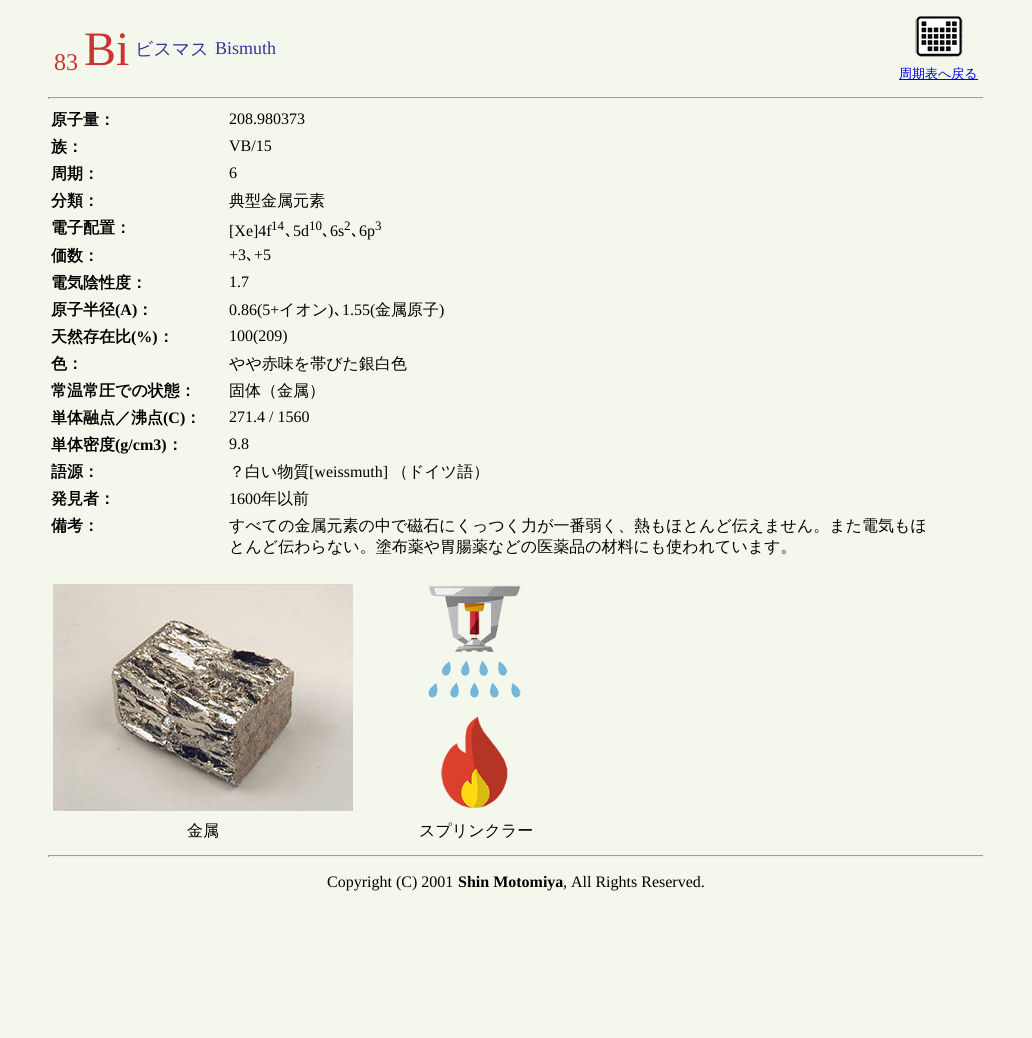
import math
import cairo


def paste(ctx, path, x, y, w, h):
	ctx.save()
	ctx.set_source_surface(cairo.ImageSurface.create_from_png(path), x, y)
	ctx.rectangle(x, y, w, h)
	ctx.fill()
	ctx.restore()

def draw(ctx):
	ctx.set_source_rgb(0.957, 0.965, 0.918)
	ctx.paint()
	ctx.select_font_face('Liberation Serif')
	ctx.set_font_size(48)
	ctx.set_source_rgb(0.8, 0.2, 0.2)
	ctx.move_to(84, 65)
	ctx.show_text('Bi')
	ctx.select_font_face('WenQuanYi Zen Hei Medium')
	ctx.set_font_size(18)
	ctx.set_source_rgb(0.2, 0.2, 0.6)
	ctx.move_to(135, 55)
	ctx.show_text('ビスマス')
	ctx.select_font_face('Liberation Serif')
	ctx.move_to(215, 54)
	ctx.show_text('Bismuth')
	ctx.set_font_size(24)
	ctx.set_source_rgb(0.8, 0.2, 0.2)
	ctx.move_to(54, 70)
	ctx.show_text('83')
	paste(ctx, 'media/1.png', 915, 16, 48, 41)
	ctx.set_source_rgb(0, 0, 0.933)
	ctx.rectangle(899, 79, 79, 1)
	ctx.fill()
	ctx.select_font_face('WenQuanYi Zen Hei Medium')
	ctx.set_font_size(13)
	ctx.move_to(899, 78)
	ctx.show_text('周期表へ戻る')
	ctx.set_source_rgb(0.624, 0.624, 0.624)
	ctx.rectangle(48, 97, 936, 1)
	ctx.fill()
	ctx.set_source_rgb(0.933, 0.933, 0.933)
	ctx.rectangle(983, 97, 1, 2)
	ctx.rectangle(48, 98, 936, 1)
	ctx.fill()
	ctx.set_source_rgb(0.624, 0.624, 0.624)
	ctx.rectangle(48, 97, 1, 2)
	ctx.fill()
	ctx.select_font_face('WenQuanYi Zen Hei', cairo.FONT_SLANT_NORMAL, cairo.FONT_WEIGHT_BOLD)
	ctx.set_font_size(16)
	ctx.set_source_rgb(0, 0, 0)
	ctx.move_to(51, 125)
	ctx.show_text('原子量：')
	ctx.select_font_face('Liberation Serif')
	ctx.move_to(229, 124)
	ctx.show_text('208.980373')
	ctx.select_font_face('WenQuanYi Zen Hei', cairo.FONT_SLANT_NORMAL, cairo.FONT_WEIGHT_BOLD)
	ctx.move_to(51, 152)
	ctx.show_text('族：')
	ctx.select_font_face('Liberation Serif')
	ctx.move_to(229, 151)
	ctx.show_text('VB/15')
	ctx.select_font_face('WenQuanYi Zen Hei', cairo.FONT_SLANT_NORMAL, cairo.FONT_WEIGHT_BOLD)
	ctx.move_to(51, 179)
	ctx.show_text('周期：')
	ctx.select_font_face('Liberation Serif')
	ctx.move_to(229, 178)
	ctx.show_text('6')
	ctx.select_font_face('WenQuanYi Zen Hei', cairo.FONT_SLANT_NORMAL, cairo.FONT_WEIGHT_BOLD)
	ctx.move_to(51, 206)
	ctx.show_text('分類：')
	ctx.select_font_face('WenQuanYi Zen Hei Medium')
	ctx.move_to(229, 206)
	ctx.show_text('典型金属元素')
	ctx.select_font_face('WenQuanYi Zen Hei', cairo.FONT_SLANT_NORMAL, cairo.FONT_WEIGHT_BOLD)
	ctx.move_to(51, 233)
	ctx.show_text('電子配置：')
	ctx.select_font_face('Liberation Serif')
	ctx.move_to(229, 236)
	ctx.show_text('[Xe]4f')
	ctx.set_font_size(13)
	ctx.move_to(271, 230)
	ctx.show_text('14')
	ctx.select_font_face('IPAGothic')
	ctx.set_font_size(16)
	ctx.move_to(285, 236)
	ctx.show_text('､')
	ctx.select_font_face('Liberation Serif')
	ctx.move_to(293, 236)
	ctx.show_text('5d')
	ctx.set_font_size(13)
	ctx.move_to(309, 230)
	ctx.show_text('10')
	ctx.select_font_face('IPAGothic')
	ctx.set_font_size(16)
	ctx.move_to(322, 236)
	ctx.show_text('､')
	ctx.select_font_face('Liberation Serif')
	ctx.move_to(330, 236)
	ctx.show_text('6s')
	ctx.set_font_size(13)
	ctx.move_to(344, 230)
	ctx.show_text('2')
	ctx.select_font_face('IPAGothic')
	ctx.set_font_size(16)
	ctx.move_to(351, 236)
	ctx.show_text('､')
	ctx.select_font_face('Liberation Serif')
	ctx.move_to(359, 236)
	ctx.show_text('6p')
	ctx.set_font_size(13)
	ctx.move_to(375, 230)
	ctx.show_text('3')
	ctx.select_font_face('WenQuanYi Zen Hei', cairo.FONT_SLANT_NORMAL, cairo.FONT_WEIGHT_BOLD)
	ctx.set_font_size(16)
	ctx.move_to(51, 261)
	ctx.show_text('価数：')
	ctx.select_font_face('Liberation Serif')
	ctx.move_to(229, 260)
	ctx.show_text('+3')
	ctx.select_font_face('IPAGothic')
	ctx.move_to(246, 260)
	ctx.show_text('､')
	ctx.select_font_face('Liberation Serif')
	ctx.move_to(254, 260)
	ctx.show_text('+5')
	ctx.select_font_face('WenQuanYi Zen Hei', cairo.FONT_SLANT_NORMAL, cairo.FONT_WEIGHT_BOLD)
	ctx.move_to(51, 288)
	ctx.show_text('電気陰性度：')
	ctx.select_font_face('Liberation Serif')
	ctx.move_to(229, 287)
	ctx.show_text('1.7')
	ctx.select_font_face('WenQuanYi Zen Hei', cairo.FONT_SLANT_NORMAL, cairo.FONT_WEIGHT_BOLD)
	ctx.move_to(51, 315)
	ctx.show_text('原子半径')
	ctx.select_font_face('Liberation Serif', cairo.FONT_SLANT_NORMAL, cairo.FONT_WEIGHT_BOLD)
	ctx.move_to(115, 315)
	ctx.show_text('(A)')
	ctx.select_font_face('WenQuanYi Zen Hei', cairo.FONT_SLANT_NORMAL, cairo.FONT_WEIGHT_BOLD)
	ctx.move_to(137, 315)
	ctx.show_text('：')
	ctx.select_font_face('Liberation Serif')
	ctx.move_to(229, 315)
	ctx.show_text('0.86(5+')
	ctx.select_font_face('WenQuanYi Zen Hei Medium')
	ctx.move_to(279, 315)
	ctx.show_text('イオン')
	ctx.select_font_face('Liberation Serif')
	ctx.move_to(328, 315)
	ctx.show_text(')')
	ctx.select_font_face('IPAGothic')
	ctx.move_to(334, 315)
	ctx.show_text('､')
	ctx.select_font_face('Liberation Serif')
	ctx.move_to(342, 315)
	ctx.show_text('1.55(')
	ctx.select_font_face('WenQuanYi Zen Hei Medium')
	ctx.move_to(375, 315)
	ctx.show_text('金属原子')
	ctx.select_font_face('Liberation Serif')
	ctx.move_to(439, 315)
	ctx.show_text(')')
	ctx.select_font_face('WenQuanYi Zen Hei', cairo.FONT_SLANT_NORMAL, cairo.FONT_WEIGHT_BOLD)
	ctx.move_to(51, 342)
	ctx.show_text('天然存在比')
	ctx.select_font_face('Liberation Serif', cairo.FONT_SLANT_NORMAL, cairo.FONT_WEIGHT_BOLD)
	ctx.move_to(131, 342)
	ctx.show_text('(%)')
	ctx.select_font_face('WenQuanYi Zen Hei', cairo.FONT_SLANT_NORMAL, cairo.FONT_WEIGHT_BOLD)
	ctx.move_to(158, 342)
	ctx.show_text('：')
	ctx.select_font_face('Liberation Serif')
	ctx.move_to(229, 341)
	ctx.show_text('100(209)')
	ctx.select_font_face('WenQuanYi Zen Hei', cairo.FONT_SLANT_NORMAL, cairo.FONT_WEIGHT_BOLD)
	ctx.move_to(51, 369)
	ctx.show_text('色：')
	ctx.select_font_face('WenQuanYi Zen Hei Medium')
	ctx.move_to(229, 369)
	ctx.show_text('やや赤味を帯びた銀白色')
	ctx.select_font_face('WenQuanYi Zen Hei', cairo.FONT_SLANT_NORMAL, cairo.FONT_WEIGHT_BOLD)
	ctx.move_to(51, 396)
	ctx.show_text('常温常圧での状態：')
	ctx.select_font_face('WenQuanYi Zen Hei Medium')
	ctx.move_to(229, 396)
	ctx.show_text('固体（金属）')
	ctx.select_font_face('WenQuanYi Zen Hei', cairo.FONT_SLANT_NORMAL, cairo.FONT_WEIGHT_BOLD)
	ctx.move_to(51, 423)
	ctx.show_text('単体融点／沸点')
	ctx.select_font_face('Liberation Serif', cairo.FONT_SLANT_NORMAL, cairo.FONT_WEIGHT_BOLD)
	ctx.move_to(163, 423)
	ctx.show_text('(C)')
	ctx.select_font_face('WenQuanYi Zen Hei', cairo.FONT_SLANT_NORMAL, cairo.FONT_WEIGHT_BOLD)
	ctx.move_to(185, 423)
	ctx.show_text('：')
	ctx.select_font_face('Liberation Serif')
	ctx.move_to(229, 422)
	ctx.show_text('271.4 / 1560')
	ctx.select_font_face('WenQuanYi Zen Hei', cairo.FONT_SLANT_NORMAL, cairo.FONT_WEIGHT_BOLD)
	ctx.move_to(51, 450)
	ctx.show_text('単体密度')
	ctx.select_font_face('Liberation Serif', cairo.FONT_SLANT_NORMAL, cairo.FONT_WEIGHT_BOLD)
	ctx.move_to(115, 450)
	ctx.show_text('(g/cm3)')
	ctx.select_font_face('WenQuanYi Zen Hei', cairo.FONT_SLANT_NORMAL, cairo.FONT_WEIGHT_BOLD)
	ctx.move_to(167, 450)
	ctx.show_text('：')
	ctx.select_font_face('Liberation Serif')
	ctx.move_to(229, 449)
	ctx.show_text('9.8')
	ctx.select_font_face('WenQuanYi Zen Hei', cairo.FONT_SLANT_NORMAL, cairo.FONT_WEIGHT_BOLD)
	ctx.move_to(51, 477)
	ctx.show_text('語源：')
	ctx.select_font_face('WenQuanYi Zen Hei Medium')
	ctx.move_to(229, 477)
	ctx.show_text('？白い物質')
	ctx.select_font_face('Liberation Serif')
	ctx.move_to(309, 477)
	ctx.show_text('[weissmuth]')
	ctx.select_font_face('WenQuanYi Zen Hei Medium')
	ctx.move_to(392, 477)
	ctx.show_text('（ドイツ語）')
	ctx.select_font_face('WenQuanYi Zen Hei', cairo.FONT_SLANT_NORMAL, cairo.FONT_WEIGHT_BOLD)
	ctx.move_to(51, 504)
	ctx.show_text('発見者：')
	ctx.select_font_face('Liberation Serif')
	ctx.move_to(229, 504)
	ctx.show_text('1600')
	ctx.select_font_face('WenQuanYi Zen Hei Medium')
	ctx.move_to(261, 504)
	ctx.show_text('年以前')
	ctx.select_font_face('WenQuanYi Zen Hei', cairo.FONT_SLANT_NORMAL, cairo.FONT_WEIGHT_BOLD)
	ctx.move_to(51, 531)
	ctx.show_text('備考：')
	ctx.select_font_face('WenQuanYi Zen Hei Medium')
	ctx.move_to(229, 531)
	ctx.show_text('すべての金属元素の中で磁石にくっつく力が一番弱く、熱もほとんど伝えません。また電気もほ')
	ctx.move_to(229, 552)
	ctx.show_text('とんど伝わらない。塗布薬や胃腸薬などの医薬品の材料にも使われています。')
	paste(ctx, 'media/2.png', 53, 584, 300, 227)
	paste(ctx, 'media/3.png', 428, 585, 93, 223)
	ctx.move_to(187, 836)
	ctx.show_text('金属')
	ctx.move_to(419, 836)
	ctx.show_text('スプリンクラー')
	ctx.set_source_rgb(0.624, 0.624, 0.624)
	ctx.rectangle(48, 855, 936, 1)
	ctx.fill()
	ctx.set_source_rgb(0.933, 0.933, 0.933)
	ctx.rectangle(983, 855, 1, 2)
	ctx.rectangle(48, 856, 936, 1)
	ctx.fill()
	ctx.set_source_rgb(0.624, 0.624, 0.624)
	ctx.rectangle(48, 855, 1, 2)
	ctx.fill()
	ctx.select_font_face('Liberation Serif')
	ctx.set_source_rgb(0, 0, 0)
	ctx.move_to(327, 887)
	ctx.show_text('Copyright (C) 2001')
	ctx.select_font_face('Liberation Serif', cairo.FONT_SLANT_NORMAL, cairo.FONT_WEIGHT_BOLD)
	ctx.move_to(458, 887)
	ctx.show_text('Shin Motomiya')
	ctx.select_font_face('Liberation Serif')
	ctx.move_to(563, 887)
	ctx.show_text(', All Rights Reserved.')


surface = cairo.ImageSurface(cairo.FORMAT_RGB24, 1032, 1038)
ctx = cairo.Context(surface)
options = cairo.FontOptions()
options.set_hint_metrics(cairo.HINT_METRICS_OFF)
options.set_hint_style(cairo.HINT_STYLE_NONE)
ctx.set_font_options(options)
ctx.set_miter_limit(4)
draw(ctx)
surface.write_to_png('image.png')
